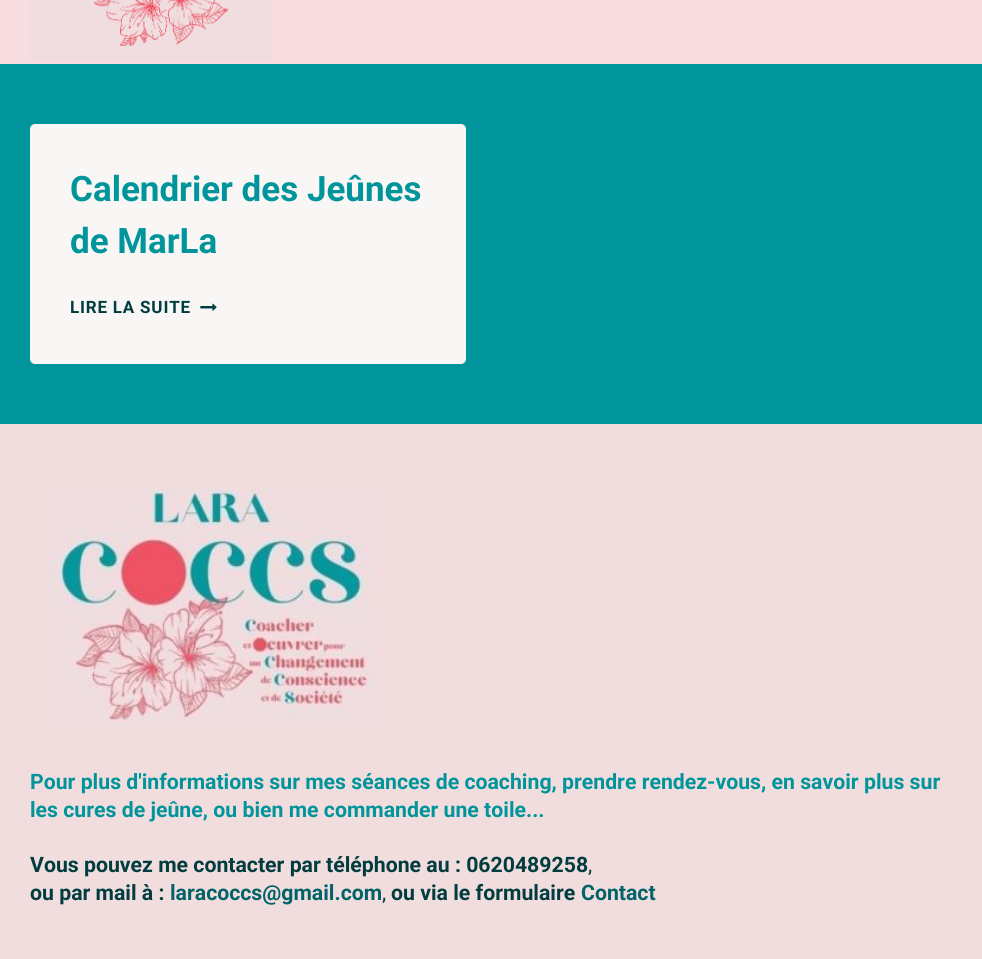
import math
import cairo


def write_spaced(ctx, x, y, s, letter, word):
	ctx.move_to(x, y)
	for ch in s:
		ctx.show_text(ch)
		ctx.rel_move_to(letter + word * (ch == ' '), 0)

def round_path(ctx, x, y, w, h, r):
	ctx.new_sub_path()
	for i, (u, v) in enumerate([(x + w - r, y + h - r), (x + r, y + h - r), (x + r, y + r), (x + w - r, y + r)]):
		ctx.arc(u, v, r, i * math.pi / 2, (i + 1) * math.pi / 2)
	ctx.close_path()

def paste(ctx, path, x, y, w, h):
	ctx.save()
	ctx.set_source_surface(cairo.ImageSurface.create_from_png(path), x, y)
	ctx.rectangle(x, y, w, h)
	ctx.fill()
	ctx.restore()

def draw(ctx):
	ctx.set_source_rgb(0, 0.58, 0.608)
	ctx.paint()
	ctx.set_source_rgb(0.965, 0.867, 0.878)
	ctx.rectangle(0, 0, 982, 64)
	ctx.fill()
	paste(ctx, 'media/1.png', 30, 0, 242, 59)
	ctx.set_source_rgb(0.973, 0.961, 0.961)
	round_path(ctx, 30, 124, 436, 240, 5)
	ctx.fill()
	ctx.select_font_face('Roboto', cairo.FONT_SLANT_NORMAL, cairo.FONT_WEIGHT_BOLD)
	ctx.set_font_size(35)
	ctx.set_source_rgb(0, 0.58, 0.608)
	ctx.move_to(70, 201)
	ctx.show_text('Calendrier des Jeûnes')
	ctx.move_to(70, 253)
	ctx.show_text('de MarLa')
	ctx.set_font_size(17)
	ctx.set_source_rgb(0.004, 0.235, 0.247)
	write_spaced(ctx, 70, 313, 'LIRE LA SUITE', 0.8, 0)
	paste(ctx, 'media/2.png', 200, 303, 17, 8)
	ctx.set_source_rgb(0.945, 0.867, 0.871)
	ctx.rectangle(0, 424, 982, 535)
	ctx.fill()
	paste(ctx, 'media/3.png', 48, 489, 325, 237)
	ctx.set_font_size(21.25)
	ctx.set_source_rgb(0, 0.58, 0.608)
	ctx.move_to(30, 789)
	ctx.show_text('Pour plus d\'informations sur mes séances de coaching, prendre rendez-vous, en savoir plus sur')
	ctx.move_to(30, 817)
	ctx.show_text('les cures de jeûne, ou bien me commander une toile...')
	ctx.set_source_rgb(0.004, 0.235, 0.247)
	ctx.move_to(30, 872)
	ctx.show_text('Vous pouvez me contacter par téléphone au : 0620489258')
	ctx.select_font_face('Roboto')
	ctx.move_to(588, 872)
	ctx.show_text(',')
	ctx.select_font_face('Roboto', cairo.FONT_SLANT_NORMAL, cairo.FONT_WEIGHT_BOLD)
	ctx.move_to(30, 900)
	ctx.show_text('ou par mail à :')
	ctx.set_source_rgb(0.004, 0.388, 0.408)
	ctx.move_to(170, 900)
	ctx.show_text('laracoccs@gmail.com')
	ctx.select_font_face('Roboto')
	ctx.set_source_rgb(0.004, 0.235, 0.247)
	ctx.move_to(382, 900)
	ctx.show_text(',')
	ctx.select_font_face('Roboto', cairo.FONT_SLANT_NORMAL, cairo.FONT_WEIGHT_BOLD)
	ctx.move_to(391, 900)
	ctx.show_text('ou via le formulaire')
	ctx.set_source_rgb(0.004, 0.388, 0.408)
	ctx.move_to(581, 900)
	ctx.show_text('Contact')


surface = cairo.ImageSurface(cairo.FORMAT_RGB24, 982, 959)
ctx = cairo.Context(surface)
options = cairo.FontOptions()
options.set_hint_metrics(cairo.HINT_METRICS_OFF)
options.set_hint_style(cairo.HINT_STYLE_NONE)
ctx.set_font_options(options)
ctx.set_miter_limit(4)
draw(ctx)
surface.write_to_png('image.png')
